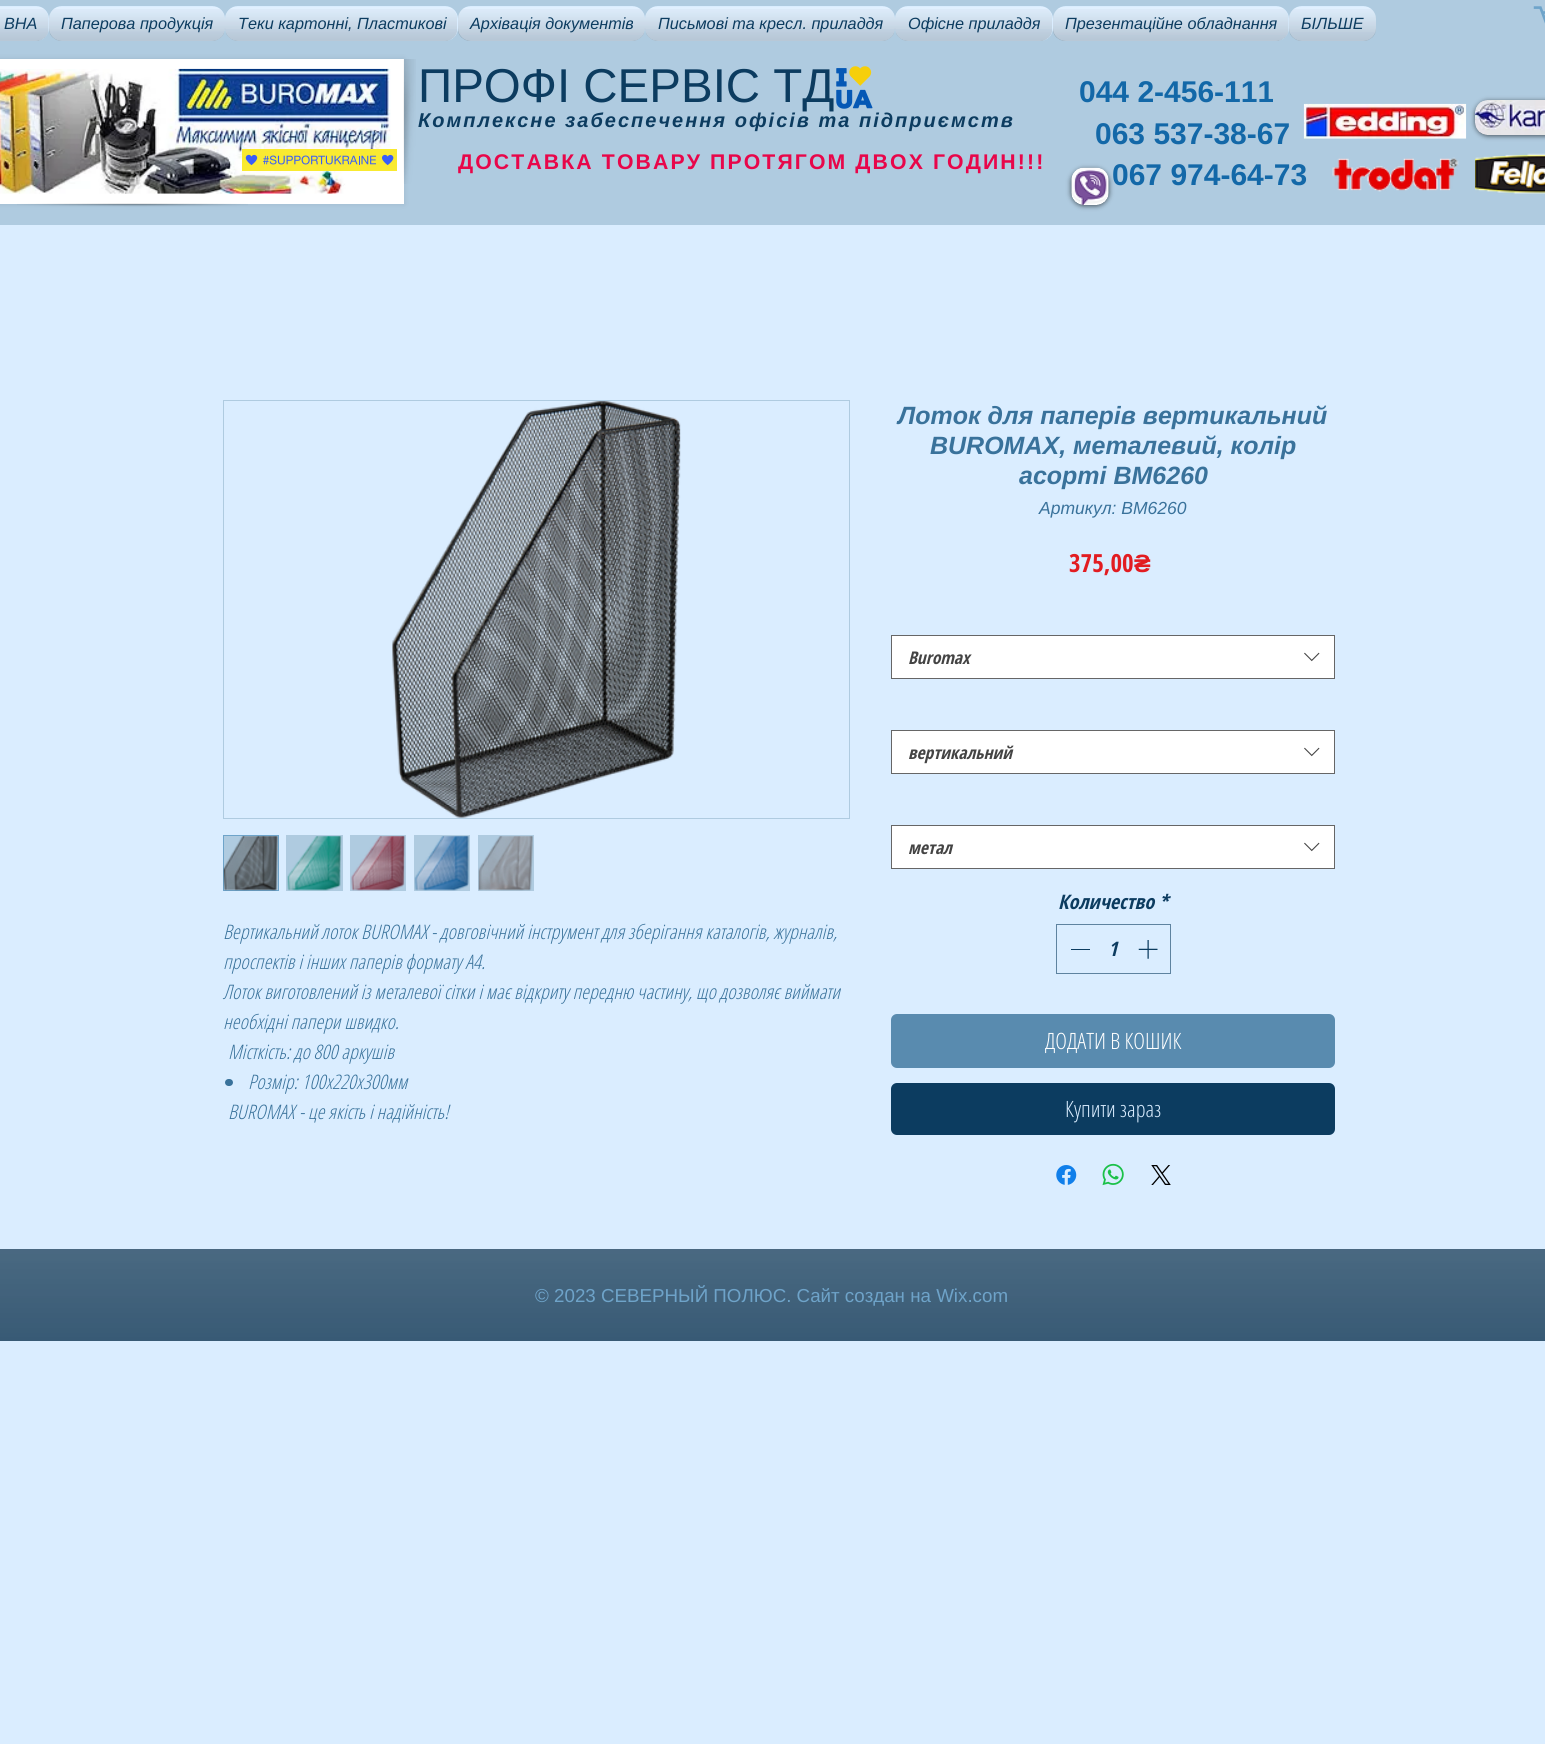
import math
import cairo


def write_spaced(ctx, x, y, s, letter, word):
	ctx.move_to(x, y)
	for ch in s:
		ctx.show_text(ch)
		ctx.rel_move_to(letter + word * (ch == ' '), 0)

def round_path(ctx, x, y, w, h, r):
	ctx.new_sub_path()
	for i, (u, v) in enumerate([(x + w - r, y + h - r), (x + r, y + h - r), (x + r, y + r), (x + w - r, y + r)]):
		ctx.arc(u, v, r, i * math.pi / 2, (i + 1) * math.pi / 2)
	ctx.close_path()

def blur_box(ctx, x, y, w, h, r, blur, alpha):
	ctx.push_group_with_content(cairo.CONTENT_ALPHA)
	ctx.set_operator(cairo.OPERATOR_SOURCE)
	for i in range(15, -16, -2):
		e = blur * i / 6
		if min(w, h) + 2 * e > 0:
			ctx.set_source_rgba(0, 0, 0, alpha * math.erfc((i - 1) / 8.5) / 2)
			round_path(ctx, x - e, y - e, w + 2 * e, h + 2 * e, max(0, min(r + e + blur * .6, min(w, h) / 2 + e)))
			ctx.fill()
	ctx.mask(ctx.pop_group())

def paste(ctx, path, x, y, w, h):
	ctx.save()
	ctx.set_source_surface(cairo.ImageSurface.create_from_png(path), x, y)
	ctx.rectangle(x, y, w, h)
	ctx.fill()
	ctx.restore()

def draw(ctx):
	ctx.set_source_rgb(0.855, 0.929, 1)
	ctx.paint()
	ctx.set_source_rgb(0.686, 0.796, 0.878)
	ctx.rectangle(0, 0, 1545, 225)
	ctx.fill()
	ctx.set_source_rgb(0.855, 0.929, 1)
	round_path(ctx, -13, 6, 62, 35, 13)
	ctx.fill()
	paste(ctx, 'media/1.png', 0, 7, 48, 21)
	paste(ctx, 'media/2.png', 0, 9, 49, 32)
	ctx.select_font_face('Liberation Sans', cairo.FONT_SLANT_ITALIC)
	ctx.set_font_size(16.25)
	ctx.set_source_rgb(0.047, 0.235, 0.376)
	ctx.move_to(4, 29)
	ctx.show_text('ВНА')
	ctx.set_source_rgb(0.855, 0.929, 1)
	round_path(ctx, 49, 6, 176, 35, 13)
	ctx.fill()
	paste(ctx, 'media/3.png', 49, 7, 176, 24)
	paste(ctx, 'media/4.png', 49, 9, 176, 32)
	ctx.set_source_rgb(0.047, 0.235, 0.376)
	ctx.move_to(61, 29)
	ctx.show_text('Паперова продукція')
	ctx.set_source_rgb(0.855, 0.929, 1)
	round_path(ctx, 225, 6, 233, 35, 13)
	ctx.fill()
	paste(ctx, 'media/5.png', 225, 7, 232, 22)
	paste(ctx, 'media/6.png', 225, 9, 232, 32)
	ctx.set_source_rgb(0.047, 0.235, 0.376)
	ctx.move_to(238, 29)
	ctx.show_text('Теки картонні, Пластикові')
	ctx.set_source_rgb(0.855, 0.929, 1)
	round_path(ctx, 458, 6, 187, 35, 13)
	ctx.fill()
	paste(ctx, 'media/7.png', 458, 7, 187, 28)
	paste(ctx, 'media/8.png', 458, 9, 187, 32)
	ctx.set_source_rgb(0.047, 0.235, 0.376)
	ctx.move_to(470, 29)
	ctx.show_text('Архівація документів')
	ctx.set_source_rgb(0.855, 0.929, 1)
	round_path(ctx, 645, 6, 250, 35, 13)
	ctx.fill()
	paste(ctx, 'media/9.png', 645, 7, 250, 22)
	paste(ctx, 'media/10.png', 645, 9, 250, 32)
	ctx.set_source_rgb(0.047, 0.235, 0.376)
	ctx.move_to(658, 29)
	ctx.show_text('Письмові та кресл. приладдя')
	ctx.set_source_rgb(0.855, 0.929, 1)
	round_path(ctx, 895, 6, 158, 35, 13)
	ctx.fill()
	paste(ctx, 'media/11.png', 895, 7, 157, 22)
	paste(ctx, 'media/12.png', 895, 9, 157, 32)
	ctx.set_source_rgb(0.047, 0.235, 0.376)
	ctx.move_to(908, 29)
	ctx.show_text('Офісне приладдя')
	ctx.set_source_rgb(0.855, 0.929, 1)
	round_path(ctx, 1053, 6, 236, 35, 13)
	ctx.fill()
	paste(ctx, 'media/13.png', 1053, 7, 235, 28)
	paste(ctx, 'media/14.png', 1053, 9, 236, 32)
	ctx.set_source_rgb(0.047, 0.235, 0.376)
	ctx.move_to(1065, 29)
	ctx.show_text('Презентаційне обладнання')
	ctx.set_source_rgb(0.855, 0.929, 1)
	round_path(ctx, 1289, 6, 87, 35, 13)
	ctx.fill()
	paste(ctx, 'media/15.png', 1289, 7, 87, 25)
	paste(ctx, 'media/16.png', 1289, 9, 87, 32)
	ctx.set_source_rgb(0.047, 0.235, 0.376)
	ctx.move_to(1301, 29)
	ctx.show_text('БІЛЬШЕ')
	paste(ctx, 'media/17.png', 1533, 6, 12, 18)
	ctx.set_source_rgb(0, 0, 0)
	blur_box(ctx, -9, 59, 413, 145, 0, 3, 0.1)
	ctx.set_source_rgb(1, 1, 1)
	ctx.rectangle(0, 59, 404, 145)
	ctx.fill()
	paste(ctx, 'media/18.png', 0, 68, 391, 126)
	paste(ctx, 'media/19.png', 17, 203, 231, 4)
	paste(ctx, 'media/20.png', 403, 59, 13, 125)
	ctx.select_font_face('Liberation Sans')
	ctx.set_font_size(47.5)
	ctx.set_source_rgb(0.047, 0.235, 0.376)
	ctx.move_to(418, 102)
	ctx.show_text('ПРОФІ СЕРВІС ТД')
	paste(ctx, 'media/21.png', 836, 66, 37, 43)
	ctx.select_font_face('Liberation Sans', cairo.FONT_SLANT_NORMAL, cairo.FONT_WEIGHT_BOLD)
	ctx.set_font_size(30)
	ctx.set_source_rgb(0.078, 0.408, 0.659)
	for x, y, s in [
		(1079, 102, '044 2-456-111'),
		(1095, 144, '063 537-38-67'),
		(1112, 185, '067 974-64-73'),
	]:
		ctx.move_to(x, y)
		ctx.show_text(s)
	paste(ctx, 'media/22.png', 1303, 103, 164, 36)
	ctx.set_source_rgb(0, 0, 0)
	blur_box(ctx, 1475, 101, 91, 35, 13, 2.5, 0.6)
	paste(ctx, 'media/23.png', 1475, 100, 70, 35)
	paste(ctx, 'media/24.png', 242, 149, 155, 22)
	ctx.select_font_face('Liberation Sans', cairo.FONT_SLANT_ITALIC, cairo.FONT_WEIGHT_BOLD)
	ctx.set_font_size(20)
	ctx.set_source_rgb(0.047, 0.235, 0.376)
	write_spaced(ctx, 418, 127, 'Комплексне забеспечення офісів та підприємств', 2, 0)
	ctx.select_font_face('Liberation Sans', cairo.FONT_SLANT_NORMAL, cairo.FONT_WEIGHT_BOLD)
	ctx.set_font_size(21.25)
	ctx.set_source_rgb(0.91, 0.027, 0.29)
	write_spaced(ctx, 458, 169, 'ДОСТАВКА ТОВАРУ ПРОТЯГОМ ДВОХ ГОДИН!!!', 2.1, 0)
	ctx.set_source_rgb(0, 0, 0)
	blur_box(ctx, 1071, 169, 38, 37, 13, 2.5, 0.6)
	paste(ctx, 'media/25.png', 1071, 167, 38, 38)
	paste(ctx, 'media/26.png', 1332, 157, 127, 35)
	paste(ctx, 'media/27.png', 1475, 153, 70, 42)
	ctx.rectangle(223.5, 400.5, 626, 418)
	ctx.set_source_rgb(0.686, 0.796, 0.878)
	ctx.set_line_width(1)
	ctx.stroke()
	paste(ctx, 'media/28.png', 392, 401, 289, 417)
	ctx.rectangle(223.5, 835.5, 55, 55)
	ctx.fill_preserve()
	ctx.set_source_rgb(0.431, 0.643, 0.792)
	ctx.stroke()
	paste(ctx, 'media/29.png', 223, 836, 55, 55)
	ctx.set_source_rgb(0.686, 0.796, 0.878)
	ctx.rectangle(286, 835, 57, 56)
	ctx.fill()
	paste(ctx, 'media/30.png', 287, 836, 55, 55)
	ctx.rectangle(350, 835, 56, 56)
	ctx.fill()
	paste(ctx, 'media/31.png', 350, 836, 55, 55)
	ctx.rectangle(414, 835, 56, 56)
	ctx.fill()
	paste(ctx, 'media/32.png', 414, 836, 55, 55)
	ctx.rectangle(478, 835, 56, 56)
	ctx.fill()
	paste(ctx, 'media/33.png', 478, 836, 55, 55)
	ctx.select_font_face('Open Sans Condensed Light', cairo.FONT_SLANT_ITALIC)
	ctx.set_font_size(20)
	ctx.set_source_rgb(0.224, 0.447, 0.608)
	for x, y, s in [
		(223, 939, 'Вертикальний лоток BUROMAX - довговічний інструмент для зберігання каталогів, журналів,'),
		(223, 969, 'проспектів і інших паперів формату А4.'),
		(223, 999, 'Лоток виготовлений із металевої сітки і має відкриту передню частину, що дозволяє виймати'),
		(223, 1029, 'необхідні папери швидко.'),
		(228, 1059, 'Місткість: до 800 аркушів'),
	]:
		ctx.move_to(x, y)
		ctx.show_text(s)
	round_path(ctx, 225, 1079, 8, 7, 3.5)
	ctx.fill()
	for x, y, s in [
		(248, 1089, 'Розмір: 100x220x300мм'),
		(228, 1119, 'BUROMAX'),
		(299, 1119, '- це якість і надійність!'),
	]:
		ctx.move_to(x, y)
		ctx.show_text(s)
	ctx.select_font_face('Liberation Sans', cairo.FONT_SLANT_ITALIC, cairo.FONT_WEIGHT_BOLD)
	ctx.set_font_size(25)
	for x, y, s in [
		(898, 424, 'Лоток для паперів вертикальний'),
		(930, 454, 'BUROMAX, металевий, колір'),
		(1019, 484, 'асорті BM6260'),
	]:
		ctx.move_to(x, y)
		ctx.show_text(s)
	ctx.select_font_face('Liberation Sans', cairo.FONT_SLANT_ITALIC)
	ctx.set_font_size(17.5)
	ctx.move_to(1039, 514)
	ctx.show_text('Артикул: BM6260')
	ctx.select_font_face('Open Sans Condensed', cairo.FONT_SLANT_NORMAL, cairo.FONT_WEIGHT_BOLD)
	ctx.set_font_size(25)
	ctx.set_source_rgb(0.886, 0.11, 0.129)
	ctx.move_to(1069, 572)
	ctx.show_text('375,00')
	ctx.select_font_face('Liberation Sans', cairo.FONT_SLANT_NORMAL, cairo.FONT_WEIGHT_BOLD)
	ctx.move_to(1134, 572)
	ctx.show_text('₴')
	ctx.set_source_rgb(1, 1, 1)
	ctx.rectangle(891.5, 635.5, 443, 43)
	ctx.fill_preserve()
	ctx.set_source_rgb(0.4, 0.4, 0.4)
	ctx.stroke()
	ctx.select_font_face('Open Sans Condensed', cairo.FONT_SLANT_ITALIC, cairo.FONT_WEIGHT_BOLD)
	ctx.set_font_size(17.5)
	ctx.set_source_rgb(0.267, 0.267, 0.267)
	ctx.move_to(908, 664)
	ctx.show_text('Buromax')
	paste(ctx, 'media/34.png', 1304, 652, 16, 10)
	ctx.set_source_rgb(1, 1, 1)
	ctx.rectangle(891.5, 730.5, 443, 43)
	ctx.fill_preserve()
	ctx.set_source_rgb(0.4, 0.4, 0.4)
	ctx.stroke()
	ctx.set_source_rgb(0.267, 0.267, 0.267)
	ctx.move_to(908, 759)
	ctx.show_text('вертикальний')
	paste(ctx, 'media/34.png', 1304, 747, 16, 10)
	ctx.set_source_rgb(1, 1, 1)
	ctx.rectangle(891.5, 825.5, 443, 43)
	ctx.fill_preserve()
	ctx.set_source_rgb(0.4, 0.4, 0.4)
	ctx.stroke()
	ctx.set_source_rgb(0.267, 0.267, 0.267)
	ctx.move_to(908, 854)
	ctx.show_text('метал')
	paste(ctx, 'media/34.png', 1304, 842, 16, 10)
	ctx.set_font_size(20)
	ctx.set_source_rgb(0.047, 0.235, 0.376)
	ctx.move_to(1058, 909)
	ctx.show_text('Количество *')
	ctx.rectangle(1056.5, 924.5, 114, 49)
	ctx.set_source_rgb(0.369, 0.514, 0.627)
	ctx.stroke()
	ctx.set_source_rgb(0.047, 0.235, 0.376)
	ctx.rectangle(1071, 949, 19, 1)
	ctx.fill()
	ctx.move_to(1108, 956)
	ctx.show_text('1')
	paste(ctx, 'media/35.png', 1138, 940, 20, 19)
	ctx.set_source_rgb(0.349, 0.545, 0.686)
	round_path(ctx, 891, 1014, 444, 54, 6)
	ctx.fill()
	ctx.select_font_face('Open Sans Condensed Light')
	ctx.set_font_size(22.5)
	ctx.set_source_rgb(1, 1, 1)
	ctx.move_to(1045, 1049)
	ctx.show_text('ДОДАТИ В КОШИК')
	ctx.set_source_rgb(0.047, 0.235, 0.376)
	round_path(ctx, 891, 1083, 444, 52, 6)
	ctx.fill()
	ctx.set_source_rgb(0.855, 0.929, 1)
	ctx.move_to(1065, 1117)
	ctx.show_text('Купити зараз')
	paste(ctx, 'media/36.png', 1056, 1165, 21, 20)
	paste(ctx, 'media/37.png', 1102, 1163, 22, 23)
	paste(ctx, 'media/38.png', 1151, 1165, 20, 20)
	ctx.set_source_rgb(0.043, 0.208, 0.337)
	ctx.rectangle(0, 1249, 1545, 92)
	ctx.fill()
	paste(ctx, 'media/39.png', 0, 1249, 1545, 92)
	ctx.select_font_face('Liberation Sans')
	ctx.set_font_size(18.75)
	ctx.set_source_rgb(0.431, 0.639, 0.788)
	ctx.move_to(535, 1302)
	ctx.show_text('© 2023 СЕВЕРНЫЙ ПОЛЮС. Сайт создан на Wix.com')


surface = cairo.ImageSurface(cairo.FORMAT_RGB24, 1545, 1744)
ctx = cairo.Context(surface)
options = cairo.FontOptions()
options.set_hint_metrics(cairo.HINT_METRICS_OFF)
options.set_hint_style(cairo.HINT_STYLE_NONE)
ctx.set_font_options(options)
ctx.set_miter_limit(4)
draw(ctx)
surface.write_to_png('image.png')
